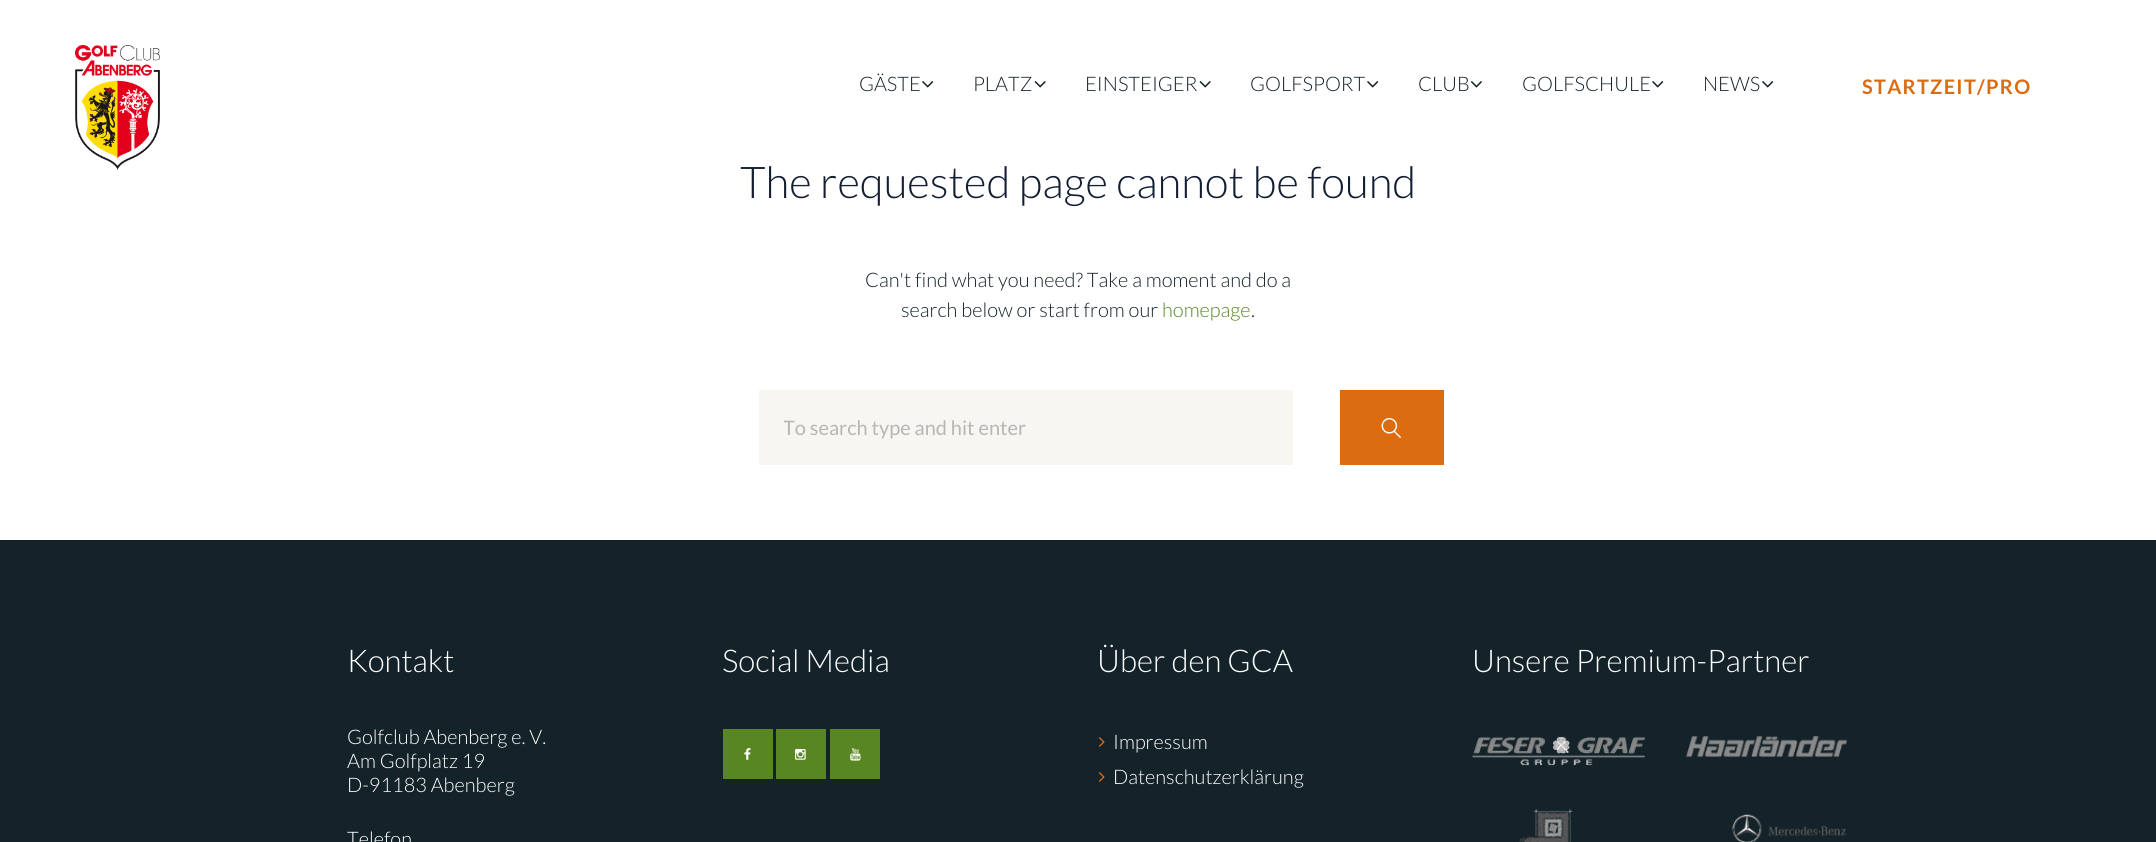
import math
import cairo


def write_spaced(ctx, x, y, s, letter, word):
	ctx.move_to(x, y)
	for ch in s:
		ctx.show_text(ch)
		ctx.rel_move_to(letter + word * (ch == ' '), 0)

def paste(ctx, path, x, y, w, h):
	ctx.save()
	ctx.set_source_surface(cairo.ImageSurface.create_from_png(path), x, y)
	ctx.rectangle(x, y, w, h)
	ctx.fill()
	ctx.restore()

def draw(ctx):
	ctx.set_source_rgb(1, 1, 1)
	ctx.paint()
	paste(ctx, 'media/1.png', 75, 45, 85, 125)
	ctx.select_font_face('Lato Light')
	ctx.set_font_size(20)
	ctx.set_source_rgb(0.082, 0.133, 0.161)
	ctx.move_to(859, 91)
	ctx.show_text('GÄSTE')
	paste(ctx, 'media/2.png', 922, 81, 12, 7)
	ctx.move_to(973, 91)
	ctx.show_text('PLATZ')
	paste(ctx, 'media/3.png', 1034, 81, 12, 7)
	ctx.move_to(1085, 91)
	ctx.show_text('EINSTEIGER')
	paste(ctx, 'media/3.png', 1199, 81, 12, 7)
	ctx.move_to(1250, 91)
	ctx.show_text('GOLFSPORT')
	paste(ctx, 'media/2.png', 1367, 81, 12, 7)
	ctx.move_to(1418, 91)
	ctx.show_text('CLUB')
	paste(ctx, 'media/4.png', 1470, 81, 12, 7)
	ctx.move_to(1522, 91)
	ctx.show_text('GOLFSCHULE')
	paste(ctx, 'media/2.png', 1652, 81, 12, 7)
	ctx.move_to(1703, 91)
	ctx.show_text('NEWS')
	paste(ctx, 'media/2.png', 1762, 81, 12, 7)
	ctx.select_font_face('Lato', cairo.FONT_SLANT_NORMAL, cairo.FONT_WEIGHT_BOLD)
	ctx.set_source_rgb(0.863, 0.424, 0.071)
	write_spaced(ctx, 1862, 94, 'STARTZEIT/PRO', 1.25, 0)
	ctx.select_font_face('Lato Light')
	ctx.set_font_size(43.75)
	ctx.set_source_rgb(0.078, 0.118, 0.196)
	ctx.move_to(740, 198)
	ctx.show_text('The requested page cannot be found')
	ctx.set_font_size(20)
	ctx.set_source_rgb(0.082, 0.133, 0.161)
	ctx.move_to(865, 287)
	ctx.show_text('Can\'t find what you need? Take a moment and do a')
	ctx.move_to(901, 317)
	ctx.show_text('search below or start from our')
	ctx.set_source_rgb(0.341, 0.525, 0.133)
	ctx.move_to(1162, 317)
	ctx.show_text('homepage')
	ctx.set_source_rgb(0.082, 0.133, 0.161)
	ctx.move_to(1251, 317)
	ctx.show_text('.')
	ctx.set_source_rgb(0.969, 0.961, 0.945)
	ctx.rectangle(759, 390, 534, 75)
	ctx.fill()
	ctx.save()
	ctx.rectangle(784, 415, 509, 24)
	ctx.clip()
	ctx.select_font_face('Lato')
	ctx.set_source_rgb(0.714, 0.714, 0.714)
	ctx.move_to(783, 435)
	ctx.show_text('To search type and hit enter')
	ctx.restore()
	ctx.set_source_rgb(0.863, 0.424, 0.071)
	ctx.rectangle(1340, 390, 104, 75)
	ctx.fill()
	paste(ctx, 'media/5.png', 1381, 418, 20, 20)
	ctx.set_source_rgb(0.082, 0.133, 0.161)
	ctx.rectangle(0, 540, 2156, 302)
	ctx.fill()
	ctx.set_font_size(31.25)
	ctx.set_source_rgb(1, 1, 1)
	ctx.move_to(347, 672)
	ctx.show_text('Kontakt')
	ctx.set_font_size(20)
	for x, y, s in [
		(347, 744, 'Golfclub Abenberg e. V.'),
		(347, 768, 'Am Golfplatz 19'),
		(347, 792, 'D-91183 Abenberg'),
		(347, 846, 'Telefon'),
	]:
		ctx.move_to(x, y)
		ctx.show_text(s)
	ctx.set_font_size(31.25)
	ctx.move_to(722, 672)
	ctx.show_text('Social Media')
	ctx.set_source_rgb(0.341, 0.525, 0.133)
	ctx.rectangle(723, 729, 50, 50)
	ctx.fill()
	paste(ctx, 'media/6.png', 744, 748, 7, 12)
	ctx.rectangle(776, 729, 50, 50)
	ctx.fill()
	paste(ctx, 'media/7.png', 795, 749, 11, 11)
	ctx.rectangle(830, 729, 50, 50)
	ctx.fill()
	paste(ctx, 'media/8.png', 850, 748, 11, 13)
	ctx.set_source_rgb(1, 1, 1)
	ctx.move_to(1097, 672)
	ctx.show_text('Über den GCA')
	paste(ctx, 'media/9.png', 1098, 737, 7, 10)
	ctx.set_font_size(20)
	ctx.move_to(1113, 749)
	ctx.show_text('Impressum')
	paste(ctx, 'media/9.png', 1098, 772, 7, 10)
	ctx.move_to(1113, 784)
	ctx.show_text('Datenschutzerklärung')
	ctx.set_font_size(31.25)
	ctx.move_to(1472, 672)
	ctx.show_text('Unsere Premium-Partner')
	paste(ctx, 'media/10.png', 1472, 736, 375, 106)


surface = cairo.ImageSurface(cairo.FORMAT_RGB24, 2156, 842)
ctx = cairo.Context(surface)
options = cairo.FontOptions()
options.set_hint_metrics(cairo.HINT_METRICS_OFF)
options.set_hint_style(cairo.HINT_STYLE_NONE)
ctx.set_font_options(options)
ctx.set_miter_limit(4)
draw(ctx)
surface.write_to_png('image.png')
